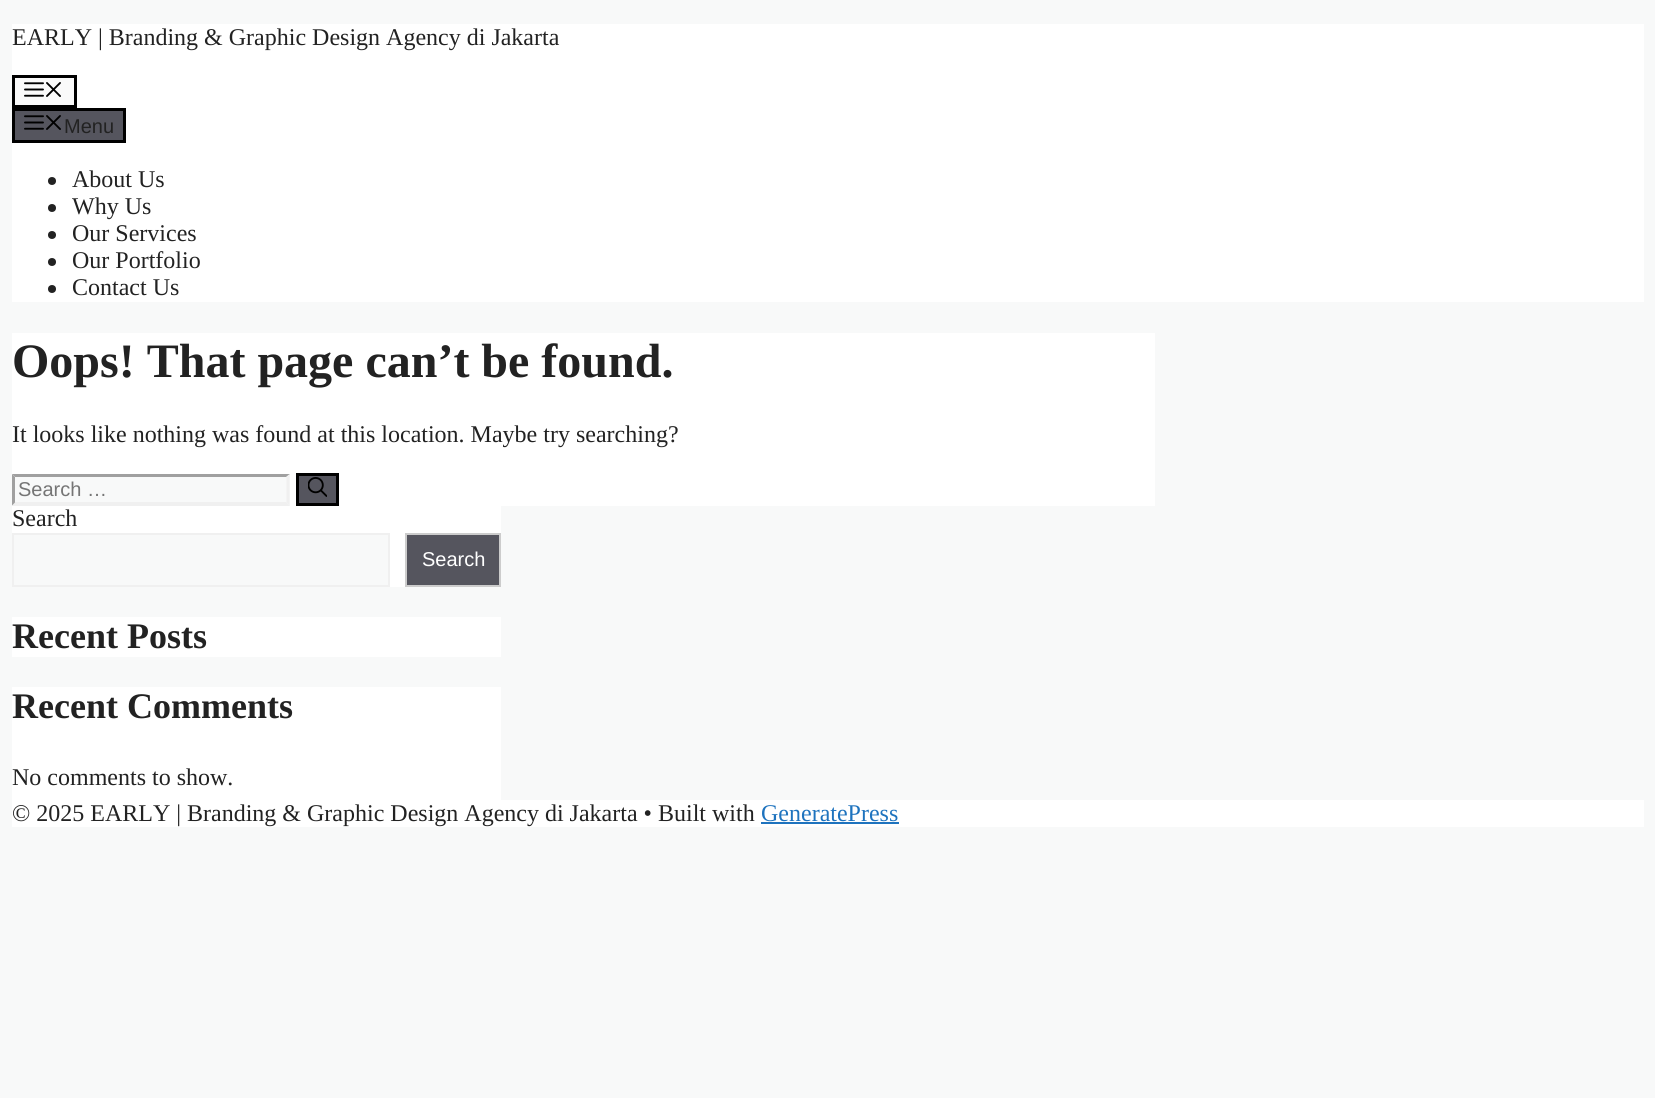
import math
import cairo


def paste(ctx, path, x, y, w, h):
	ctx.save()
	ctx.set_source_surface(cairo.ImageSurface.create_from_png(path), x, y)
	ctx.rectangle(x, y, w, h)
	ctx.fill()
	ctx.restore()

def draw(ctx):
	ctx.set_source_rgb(0.969, 0.973, 0.976)
	ctx.paint()
	ctx.set_source_rgb(1, 1, 1)
	ctx.rectangle(12, 24, 1632, 278)
	ctx.fill()
	ctx.select_font_face('Liberation Serif')
	ctx.set_font_size(24)
	ctx.set_source_rgb(0.133, 0.133, 0.133)
	ctx.move_to(12, 45)
	ctx.show_text('EARLY | Branding & Graphic Design Agency di Jakarta')
	ctx.set_source_rgb(0.98, 0.98, 0.98)
	ctx.rectangle(13.5, 76.5, 62, 30)
	ctx.fill_preserve()
	ctx.set_source_rgb(0, 0, 0)
	ctx.set_line_width(3)
	ctx.stroke()
	paste(ctx, 'media/1.png', 24, 82, 20, 15)
	paste(ctx, 'media/2.png', 46, 82, 15, 15)
	ctx.set_source_rgb(0.333, 0.333, 0.369)
	ctx.rectangle(13.5, 109.5, 111, 32)
	ctx.fill_preserve()
	ctx.set_source_rgb(0, 0, 0)
	ctx.stroke()
	paste(ctx, 'media/3.png', 24, 115, 20, 15)
	paste(ctx, 'media/4.png', 46, 115, 15, 15)
	ctx.select_font_face('Liberation Sans')
	ctx.set_font_size(20)
	ctx.set_source_rgb(0.133, 0.133, 0.133)
	ctx.move_to(64, 133)
	ctx.show_text('Menu')
	ctx.new_path()
	ctx.arc(52, 181, 4, 0, 2 * math.pi)
	ctx.fill()
	ctx.select_font_face('Liberation Serif')
	ctx.set_font_size(24)
	ctx.move_to(72, 187)
	ctx.show_text('About Us')
	ctx.new_path()
	ctx.arc(52, 208, 4, 0, 2 * math.pi)
	ctx.fill()
	ctx.move_to(72, 214)
	ctx.show_text('Why Us')
	ctx.new_path()
	ctx.arc(52, 235, 4, 0, 2 * math.pi)
	ctx.fill()
	ctx.move_to(72, 241)
	ctx.show_text('Our Services')
	ctx.new_path()
	ctx.arc(52, 262, 4, 0, 2 * math.pi)
	ctx.fill()
	ctx.move_to(72, 268)
	ctx.show_text('Our Portfolio')
	ctx.new_path()
	ctx.arc(52, 289, 4, 0, 2 * math.pi)
	ctx.fill()
	ctx.move_to(72, 295)
	ctx.show_text('Contact Us')
	ctx.set_source_rgb(1, 1, 1)
	ctx.rectangle(12, 333, 1143, 173)
	ctx.fill()
	ctx.select_font_face('Liberation Serif', cairo.FONT_SLANT_NORMAL, cairo.FONT_WEIGHT_BOLD)
	ctx.set_font_size(48)
	ctx.set_source_rgb(0.133, 0.133, 0.133)
	ctx.move_to(12, 377)
	ctx.show_text('Oops! That page can’t be found.')
	ctx.select_font_face('Liberation Serif')
	ctx.set_font_size(24)
	ctx.move_to(12, 442)
	ctx.show_text('It looks like nothing was found at this location. Maybe try searching?')
	ctx.set_source_rgb(0.969, 0.973, 0.976)
	ctx.rectangle(12, 474, 278, 32)
	ctx.fill()
	ctx.set_source_rgb(0.627, 0.627, 0.627)
	ctx.new_path()
	ctx.move_to(12, 474)
	ctx.line_to(290, 474)
	ctx.line_to(286, 477)
	ctx.line_to(15, 477)
	ctx.close_path()
	ctx.fill()
	ctx.set_source_rgb(0.941, 0.941, 0.941)
	ctx.new_path()
	ctx.move_to(289.5, 474)
	ctx.line_to(289.5, 505.5)
	ctx.line_to(286.5, 502.5)
	ctx.line_to(286.5, 477)
	ctx.close_path()
	ctx.fill()
	ctx.new_path()
	ctx.move_to(290, 506)
	ctx.line_to(12, 506)
	ctx.line_to(15, 502)
	ctx.line_to(286, 502)
	ctx.close_path()
	ctx.fill()
	ctx.set_source_rgb(0.627, 0.627, 0.627)
	ctx.new_path()
	ctx.move_to(12, 505.5)
	ctx.line_to(12, 474)
	ctx.line_to(15, 477)
	ctx.line_to(15, 502.5)
	ctx.close_path()
	ctx.fill()
	ctx.select_font_face('Liberation Sans')
	ctx.set_font_size(20)
	ctx.set_source_rgb(0.459, 0.459, 0.459)
	ctx.move_to(18, 496)
	ctx.show_text('Search …')
	ctx.set_source_rgb(0.333, 0.333, 0.369)
	ctx.rectangle(297.5, 474.5, 40, 30)
	ctx.fill_preserve()
	ctx.set_source_rgb(0, 0, 0)
	ctx.stroke()
	paste(ctx, 'media/5.png', 308, 477, 19, 20)
	ctx.set_source_rgb(1, 1, 1)
	ctx.rectangle(12, 506, 489, 81)
	ctx.fill()
	ctx.select_font_face('Liberation Serif')
	ctx.set_font_size(24)
	ctx.set_source_rgb(0.133, 0.133, 0.133)
	ctx.move_to(12, 526)
	ctx.show_text('Search')
	ctx.set_source_rgb(0.969, 0.973, 0.976)
	ctx.rectangle(13, 534, 376, 52)
	ctx.fill_preserve()
	ctx.set_source_rgb(0.941, 0.941, 0.941)
	ctx.set_line_width(2)
	ctx.stroke()
	ctx.set_source_rgb(0.333, 0.333, 0.369)
	ctx.rectangle(406, 534, 94, 52)
	ctx.fill_preserve()
	ctx.set_source_rgb(0.8, 0.8, 0.8)
	ctx.stroke()
	ctx.select_font_face('Liberation Sans')
	ctx.set_font_size(20)
	ctx.set_source_rgb(1, 1, 1)
	ctx.move_to(422, 566)
	ctx.show_text('Search')
	ctx.rectangle(12, 617, 489, 40)
	ctx.fill()
	ctx.select_font_face('Liberation Serif', cairo.FONT_SLANT_NORMAL, cairo.FONT_WEIGHT_BOLD)
	ctx.set_font_size(36)
	ctx.set_source_rgb(0.133, 0.133, 0.133)
	ctx.move_to(12, 648)
	ctx.show_text('Recent Posts')
	ctx.set_source_rgb(1, 1, 1)
	ctx.rectangle(12, 687, 489, 113)
	ctx.fill()
	ctx.set_source_rgb(0.133, 0.133, 0.133)
	ctx.move_to(12, 718)
	ctx.show_text('Recent Comments')
	ctx.select_font_face('Liberation Serif')
	ctx.set_font_size(24)
	ctx.move_to(12, 785)
	ctx.show_text('No comments to show.')
	ctx.set_source_rgb(1, 1, 1)
	ctx.rectangle(12, 800, 1632, 27)
	ctx.fill()
	ctx.set_source_rgb(0.133, 0.133, 0.133)
	ctx.move_to(12, 821)
	ctx.show_text('© 2025 EARLY | Branding & Graphic Design Agency di Jakarta • Built with')
	ctx.set_source_rgb(0.118, 0.451, 0.745)
	ctx.move_to(761, 821)
	ctx.show_text('GeneratePress')
	ctx.rectangle(761, 822, 138, 2)
	ctx.fill()


surface = cairo.ImageSurface(cairo.FORMAT_RGB24, 1655, 1098)
ctx = cairo.Context(surface)
options = cairo.FontOptions()
options.set_hint_metrics(cairo.HINT_METRICS_OFF)
options.set_hint_style(cairo.HINT_STYLE_NONE)
ctx.set_font_options(options)
ctx.set_miter_limit(4)
draw(ctx)
surface.write_to_png('image.png')
